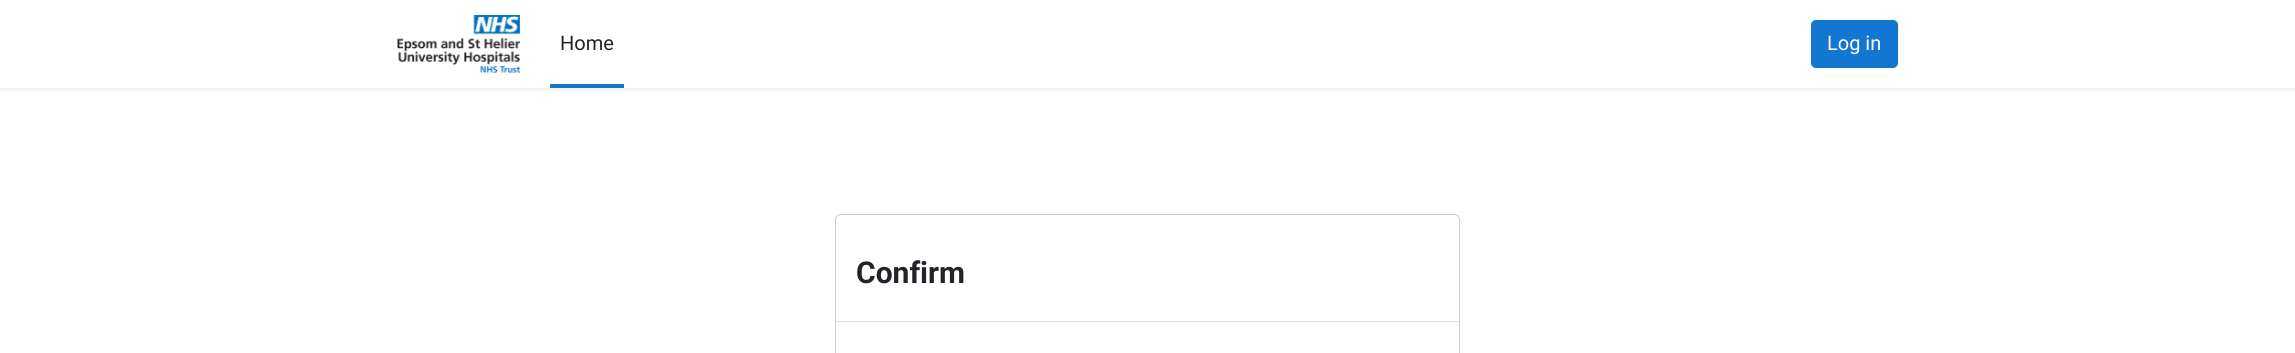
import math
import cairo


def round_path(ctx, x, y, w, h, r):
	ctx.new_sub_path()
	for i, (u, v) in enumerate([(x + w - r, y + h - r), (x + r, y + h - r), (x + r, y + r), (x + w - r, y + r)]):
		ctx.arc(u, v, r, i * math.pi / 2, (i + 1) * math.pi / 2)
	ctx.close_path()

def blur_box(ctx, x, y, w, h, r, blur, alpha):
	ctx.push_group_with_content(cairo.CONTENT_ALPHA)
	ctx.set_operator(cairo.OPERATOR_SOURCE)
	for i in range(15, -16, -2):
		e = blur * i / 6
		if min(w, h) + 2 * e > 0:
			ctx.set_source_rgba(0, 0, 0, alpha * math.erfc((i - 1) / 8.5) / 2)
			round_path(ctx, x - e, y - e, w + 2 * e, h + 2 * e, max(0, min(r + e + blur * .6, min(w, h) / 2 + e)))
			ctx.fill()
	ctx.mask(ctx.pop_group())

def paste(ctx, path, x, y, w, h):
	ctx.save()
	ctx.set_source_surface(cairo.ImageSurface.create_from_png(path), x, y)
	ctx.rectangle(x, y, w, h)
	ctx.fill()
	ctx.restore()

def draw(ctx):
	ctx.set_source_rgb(1, 1, 1)
	ctx.paint()
	ctx.set_source_rgb(0, 0, 0)
	blur_box(ctx, 0, 3, 2295, 87, 0, 2.5, 0.07)
	ctx.set_source_rgb(1, 1, 1)
	ctx.rectangle(0, 0, 2295, 88)
	ctx.fill()
	paste(ctx, 'media/1.png', 397, 14, 123, 59)
	ctx.set_source_rgb(0.067, 0.467, 0.82)
	ctx.rectangle(550, 84, 74, 4)
	ctx.fill()
	ctx.select_font_face('Roboto')
	ctx.set_font_size(20)
	ctx.set_source_rgb(0.129, 0.145, 0.161)
	ctx.move_to(560, 50)
	ctx.show_text('Home')
	ctx.set_source_rgb(0.067, 0.467, 0.82)
	round_path(ctx, 1811.5, 20.5, 86, 47, 4.5)
	ctx.fill_preserve()
	ctx.set_line_width(1)
	ctx.stroke()
	ctx.set_source_rgb(1, 1, 1)
	ctx.move_to(1827, 50)
	ctx.show_text('Log in')
	round_path(ctx, 835.5, 214.5, 624, 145, 5.5)
	ctx.set_source_rgb(0.8, 0.8, 0.8)
	ctx.stroke()
	ctx.set_source_rgb(0.871, 0.886, 0.902)
	ctx.rectangle(836, 321, 623, 1)
	ctx.fill()
	ctx.select_font_face('Roboto', cairo.FONT_SLANT_NORMAL, cairo.FONT_WEIGHT_BOLD)
	ctx.set_font_size(30)
	ctx.set_source_rgb(0.129, 0.145, 0.161)
	ctx.move_to(856, 283)
	ctx.show_text('Confirm')


surface = cairo.ImageSurface(cairo.FORMAT_RGB24, 2295, 353)
ctx = cairo.Context(surface)
options = cairo.FontOptions()
options.set_hint_metrics(cairo.HINT_METRICS_OFF)
options.set_hint_style(cairo.HINT_STYLE_NONE)
ctx.set_font_options(options)
ctx.set_miter_limit(4)
draw(ctx)
surface.write_to_png('image.png')
